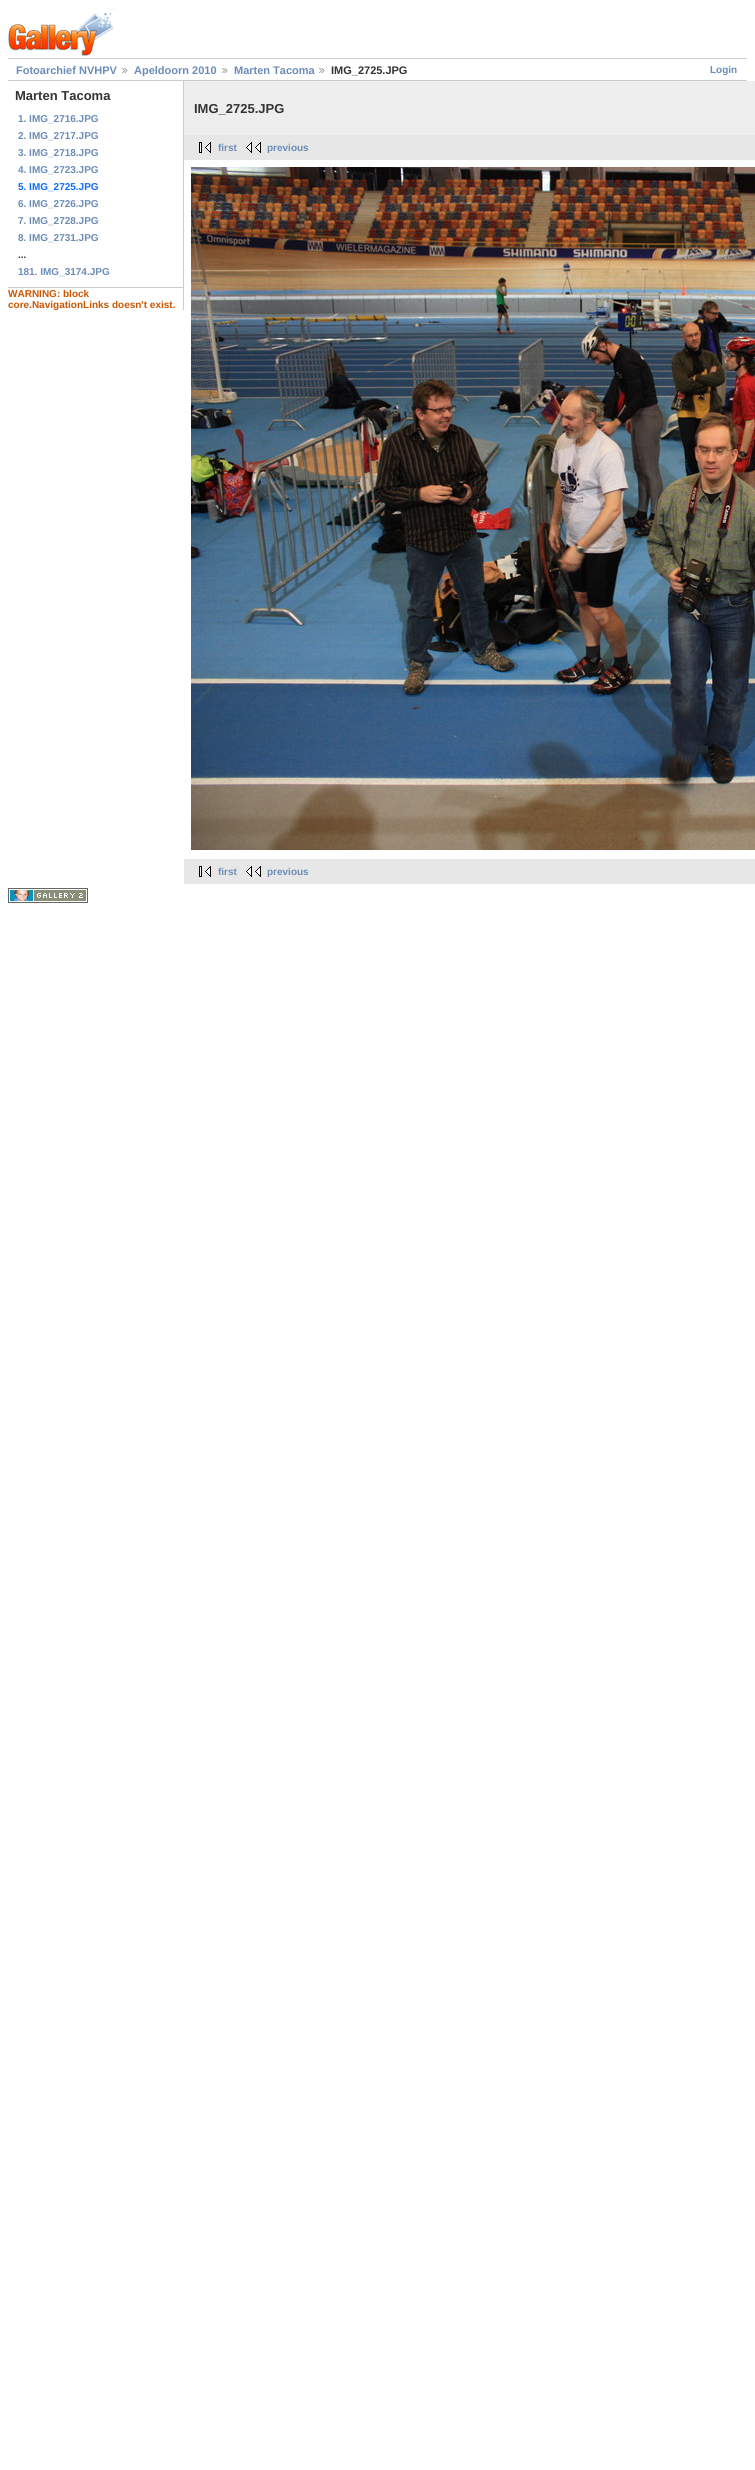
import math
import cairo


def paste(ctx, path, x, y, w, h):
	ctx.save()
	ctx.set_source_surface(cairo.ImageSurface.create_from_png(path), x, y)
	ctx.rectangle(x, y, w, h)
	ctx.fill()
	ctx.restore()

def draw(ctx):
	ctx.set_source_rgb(1, 1, 1)
	ctx.paint()
	paste(ctx, 'media/1.png', 8, 8, 107, 48)
	ctx.set_source_rgb(0.8, 0.8, 0.8)
	ctx.rectangle(8, 58, 739, 1)
	ctx.fill()
	ctx.rectangle(8, 80, 739, 1)
	ctx.fill()
	ctx.select_font_face('Liberation Sans', cairo.FONT_SLANT_NORMAL, cairo.FONT_WEIGHT_BOLD)
	ctx.set_font_size(11)
	ctx.set_source_rgb(0.42, 0.549, 0.718)
	ctx.move_to(16, 74)
	ctx.show_text('Fotoarchief NVHPV')
	paste(ctx, 'media/2.png', 122, 68, 6, 5)
	ctx.move_to(134, 74)
	ctx.show_text('Apeldoorn 2010')
	paste(ctx, 'media/2.png', 222, 68, 6, 5)
	ctx.move_to(234, 74)
	ctx.show_text('Marten Tacoma')
	paste(ctx, 'media/2.png', 319, 68, 6, 5)
	ctx.set_source_rgb(0.2, 0.2, 0.2)
	ctx.move_to(331, 74)
	ctx.show_text('IMG_2725.JPG')
	ctx.set_font_size(10)
	ctx.set_source_rgb(0.42, 0.549, 0.718)
	ctx.move_to(710, 73)
	ctx.show_text('Login')
	ctx.set_source_rgb(0.8, 0.8, 0.8)
	ctx.rectangle(183, 81, 1, 229)
	ctx.fill()
	ctx.rectangle(8, 287, 175, 1)
	ctx.fill()
	ctx.set_font_size(13)
	ctx.set_source_rgb(0.2, 0.2, 0.2)
	ctx.move_to(15, 100)
	ctx.show_text('Marten Tacoma')
	ctx.set_font_size(10)
	ctx.set_source_rgb(0.42, 0.549, 0.718)
	for x, y, s in [
		(18, 122, '1. IMG_2716.JPG'),
		(18, 139, '2. IMG_2717.JPG'),
		(18, 156, '3. IMG_2718.JPG'),
		(18, 173, '4. IMG_2723.JPG'),
	]:
		ctx.move_to(x, y)
		ctx.show_text(s)
	ctx.set_source_rgb(0.043, 0.424, 1)
	ctx.move_to(18, 190)
	ctx.show_text('5. IMG_2725.JPG')
	ctx.set_source_rgb(0.42, 0.549, 0.718)
	for x, y, s in [
		(18, 207, '6. IMG_2726.JPG'),
		(18, 224, '7. IMG_2728.JPG'),
		(18, 241, '8. IMG_2731.JPG'),
	]:
		ctx.move_to(x, y)
		ctx.show_text(s)
	ctx.set_source_rgb(0.2, 0.2, 0.2)
	ctx.move_to(18, 258)
	ctx.show_text('...')
	ctx.set_source_rgb(0.42, 0.549, 0.718)
	ctx.move_to(18, 275)
	ctx.show_text('181. IMG_3174.JPG')
	ctx.set_source_rgb(0.8, 0.333, 0)
	ctx.move_to(8, 297)
	ctx.show_text('WARNING: block')
	ctx.move_to(8, 308)
	ctx.show_text('core.NavigationLinks doesn\'t exist.')
	ctx.set_source_rgb(0.933, 0.933, 0.933)
	ctx.rectangle(184, 81, 571, 54)
	ctx.fill()
	ctx.set_font_size(13)
	ctx.set_source_rgb(0.2, 0.2, 0.2)
	ctx.move_to(194, 113)
	ctx.show_text('IMG_2725.JPG')
	ctx.set_source_rgb(0.906, 0.906, 0.906)
	ctx.rectangle(184, 135, 571, 25)
	ctx.fill()
	paste(ctx, 'media/3.png', 199, 142, 12, 11)
	ctx.set_font_size(10)
	ctx.set_source_rgb(0.42, 0.549, 0.718)
	ctx.move_to(218, 151)
	ctx.show_text('first')
	paste(ctx, 'media/4.png', 246, 142, 15, 11)
	ctx.move_to(267, 151)
	ctx.show_text('previous')
	paste(ctx, 'media/5.png', 191, 167, 564, 683)
	ctx.set_source_rgb(0.906, 0.906, 0.906)
	ctx.rectangle(184, 859, 571, 25)
	ctx.fill()
	paste(ctx, 'media/3.png', 199, 866, 12, 11)
	ctx.set_source_rgb(0.42, 0.549, 0.718)
	ctx.move_to(218, 875)
	ctx.show_text('first')
	paste(ctx, 'media/4.png', 246, 866, 15, 11)
	ctx.move_to(267, 875)
	ctx.show_text('previous')
	paste(ctx, 'media/6.png', 8, 888, 80, 15)


surface = cairo.ImageSurface(cairo.FORMAT_RGB24, 755, 2470)
ctx = cairo.Context(surface)
options = cairo.FontOptions()
options.set_hint_metrics(cairo.HINT_METRICS_OFF)
options.set_hint_style(cairo.HINT_STYLE_NONE)
ctx.set_font_options(options)
ctx.set_miter_limit(4)
draw(ctx)
surface.write_to_png('image.png')
